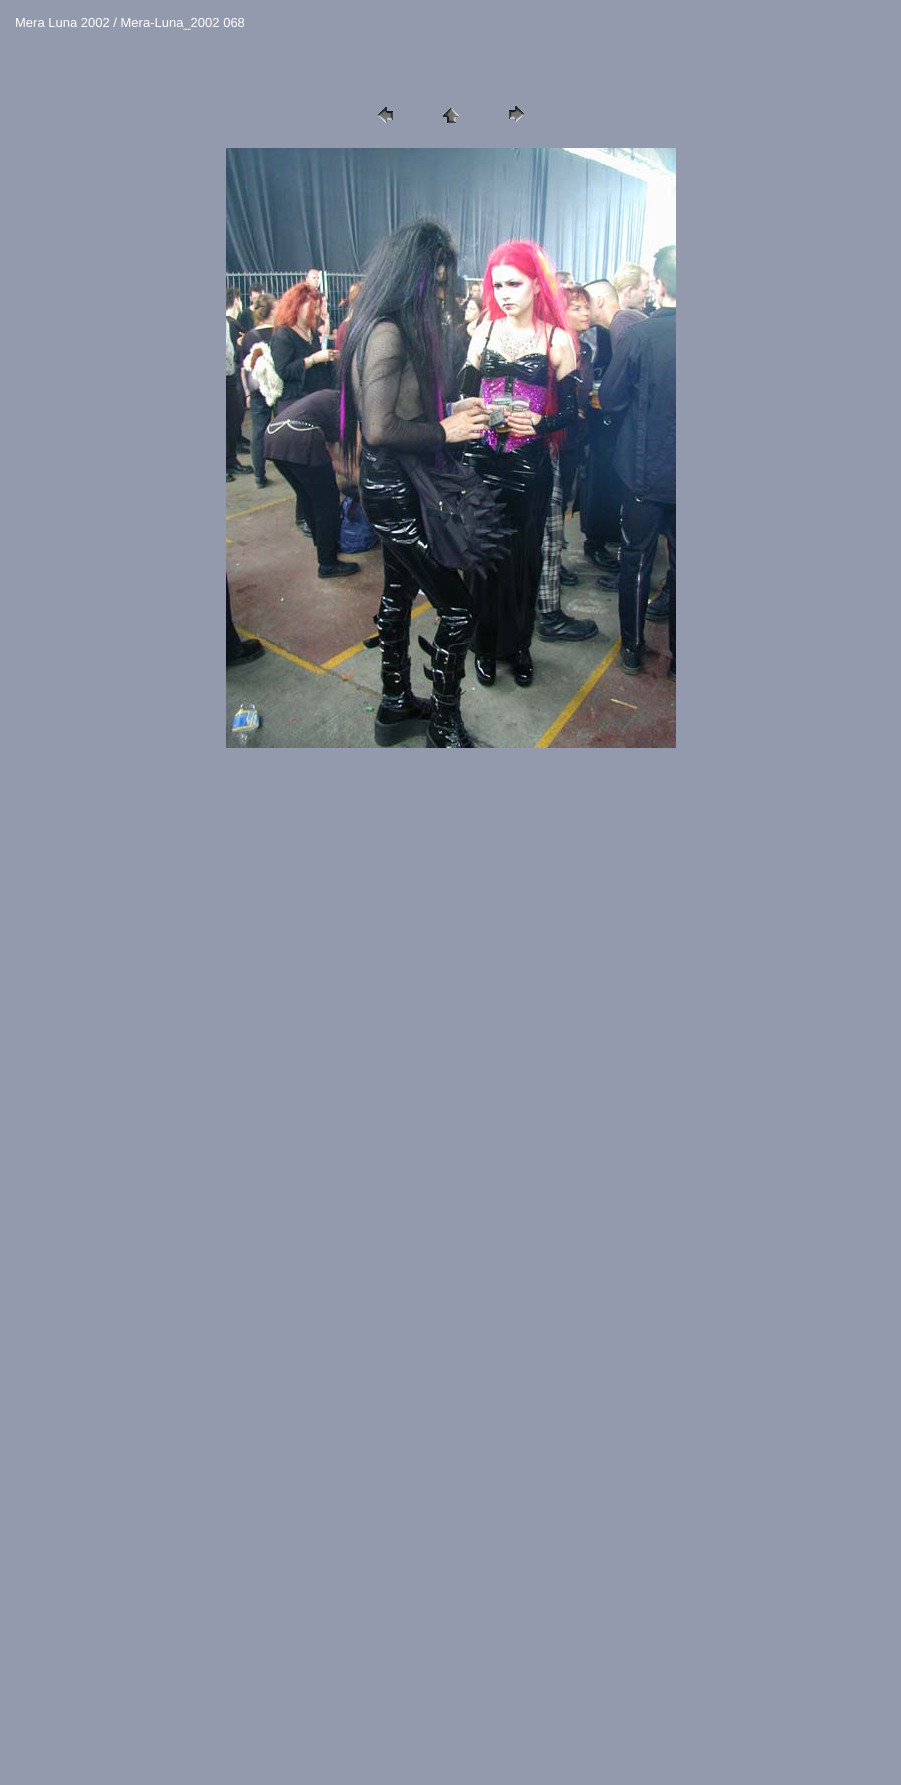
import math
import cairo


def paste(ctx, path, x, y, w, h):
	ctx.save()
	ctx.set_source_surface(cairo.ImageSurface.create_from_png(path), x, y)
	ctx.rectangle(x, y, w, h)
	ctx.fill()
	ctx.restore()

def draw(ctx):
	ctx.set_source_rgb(0.58, 0.604, 0.678)
	ctx.paint()
	ctx.select_font_face('Liberation Sans')
	ctx.set_font_size(13)
	ctx.set_source_rgb(1, 1, 1)
	ctx.move_to(15, 27)
	ctx.show_text('Mera Luna 2002 / Mera-Luna_2002 068')
	paste(ctx, 'media/1.png', 377, 107, 16, 17)
	paste(ctx, 'media/2.png', 443, 107, 17, 16)
	paste(ctx, 'media/3.png', 509, 106, 16, 17)
	paste(ctx, 'media/4.png', 226, 148, 450, 600)


surface = cairo.ImageSurface(cairo.FORMAT_RGB24, 901, 1785)
ctx = cairo.Context(surface)
options = cairo.FontOptions()
options.set_hint_metrics(cairo.HINT_METRICS_OFF)
options.set_hint_style(cairo.HINT_STYLE_NONE)
ctx.set_font_options(options)
ctx.set_miter_limit(4)
draw(ctx)
surface.write_to_png('image.png')
